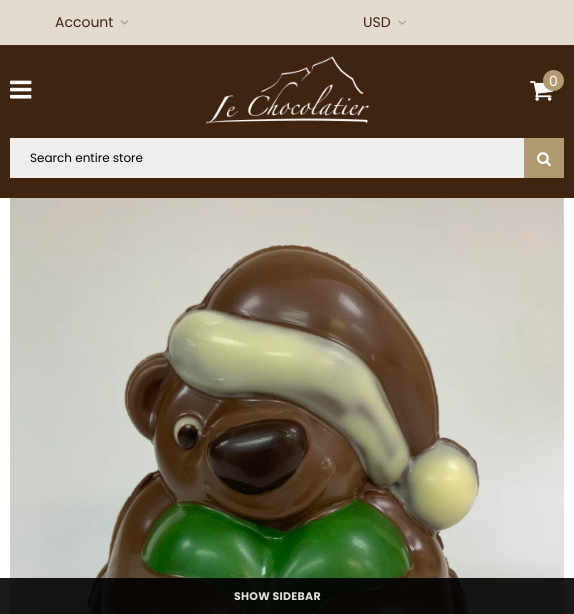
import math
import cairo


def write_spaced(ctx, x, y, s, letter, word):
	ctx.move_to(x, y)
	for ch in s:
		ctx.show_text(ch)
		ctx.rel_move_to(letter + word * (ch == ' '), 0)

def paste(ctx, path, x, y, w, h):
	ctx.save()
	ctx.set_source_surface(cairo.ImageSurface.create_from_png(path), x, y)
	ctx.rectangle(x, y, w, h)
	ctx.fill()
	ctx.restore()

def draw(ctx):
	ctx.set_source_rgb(1, 1, 1)
	ctx.paint()
	ctx.set_source_rgb(0.247, 0.141, 0.059)
	ctx.rectangle(0, 45, 574, 153)
	ctx.fill()
	ctx.set_source_rgb(0.89, 0.859, 0.816)
	ctx.rectangle(0, 0, 574, 45)
	ctx.fill()
	ctx.set_source_rgb(0.859, 0.859, 0.859)
	ctx.rectangle(189, 0, 1, 45)
	ctx.fill()
	ctx.select_font_face('Poppins')
	ctx.set_font_size(14)
	ctx.set_source_rgb(0.247, 0.141, 0.059)
	ctx.move_to(55, 27)
	ctx.show_text('Account')
	paste(ctx, 'media/1.png', 120, 20, 9, 5)
	ctx.move_to(363, 27)
	ctx.show_text('USD')
	paste(ctx, 'media/2.png', 398, 20, 8, 5)
	paste(ctx, 'media/3.png', 10, 80, 22, 19)
	paste(ctx, 'media/4.png', 206, 56, 163, 68)
	paste(ctx, 'media/5.png', 530, 81, 24, 20)
	ctx.set_source_rgb(0.694, 0.6, 0.443)
	ctx.arc(553.5, 80.5, 10.5, 0, 2 * math.pi)
	ctx.fill()
	ctx.set_source_rgb(1, 1, 1)
	ctx.move_to(549, 86)
	ctx.show_text('0')
	ctx.set_source_rgb(0.933, 0.933, 0.933)
	ctx.rectangle(10, 138, 514, 40)
	ctx.fill()
	ctx.set_font_size(12)
	ctx.set_source_rgb(0, 0, 0)
	ctx.move_to(30, 162)
	ctx.show_text('Search entire store')
	ctx.set_source_rgb(0.694, 0.6, 0.443)
	ctx.rectangle(524, 138, 40, 40)
	ctx.fill()
	paste(ctx, 'media/6.png', 537, 152, 14, 15)
	paste(ctx, 'media/7.png', 10, 198, 554, 416)
	ctx.set_source_rgba(0, 0, 0, 0.9)
	ctx.rectangle(0, 578, 574, 36)
	ctx.fill()
	ctx.select_font_face('Poppins', cairo.FONT_SLANT_NORMAL, cairo.FONT_WEIGHT_BOLD)
	ctx.set_font_size(11)
	ctx.set_source_rgb(0.886, 0.871, 0.847)
	write_spaced(ctx, 234, 600, 'SHOW SIDEBAR', 0.25, 0)


surface = cairo.ImageSurface(cairo.FORMAT_RGB24, 574, 614)
ctx = cairo.Context(surface)
options = cairo.FontOptions()
options.set_hint_metrics(cairo.HINT_METRICS_OFF)
options.set_hint_style(cairo.HINT_STYLE_NONE)
ctx.set_font_options(options)
ctx.set_miter_limit(4)
draw(ctx)
surface.write_to_png('image.png')
